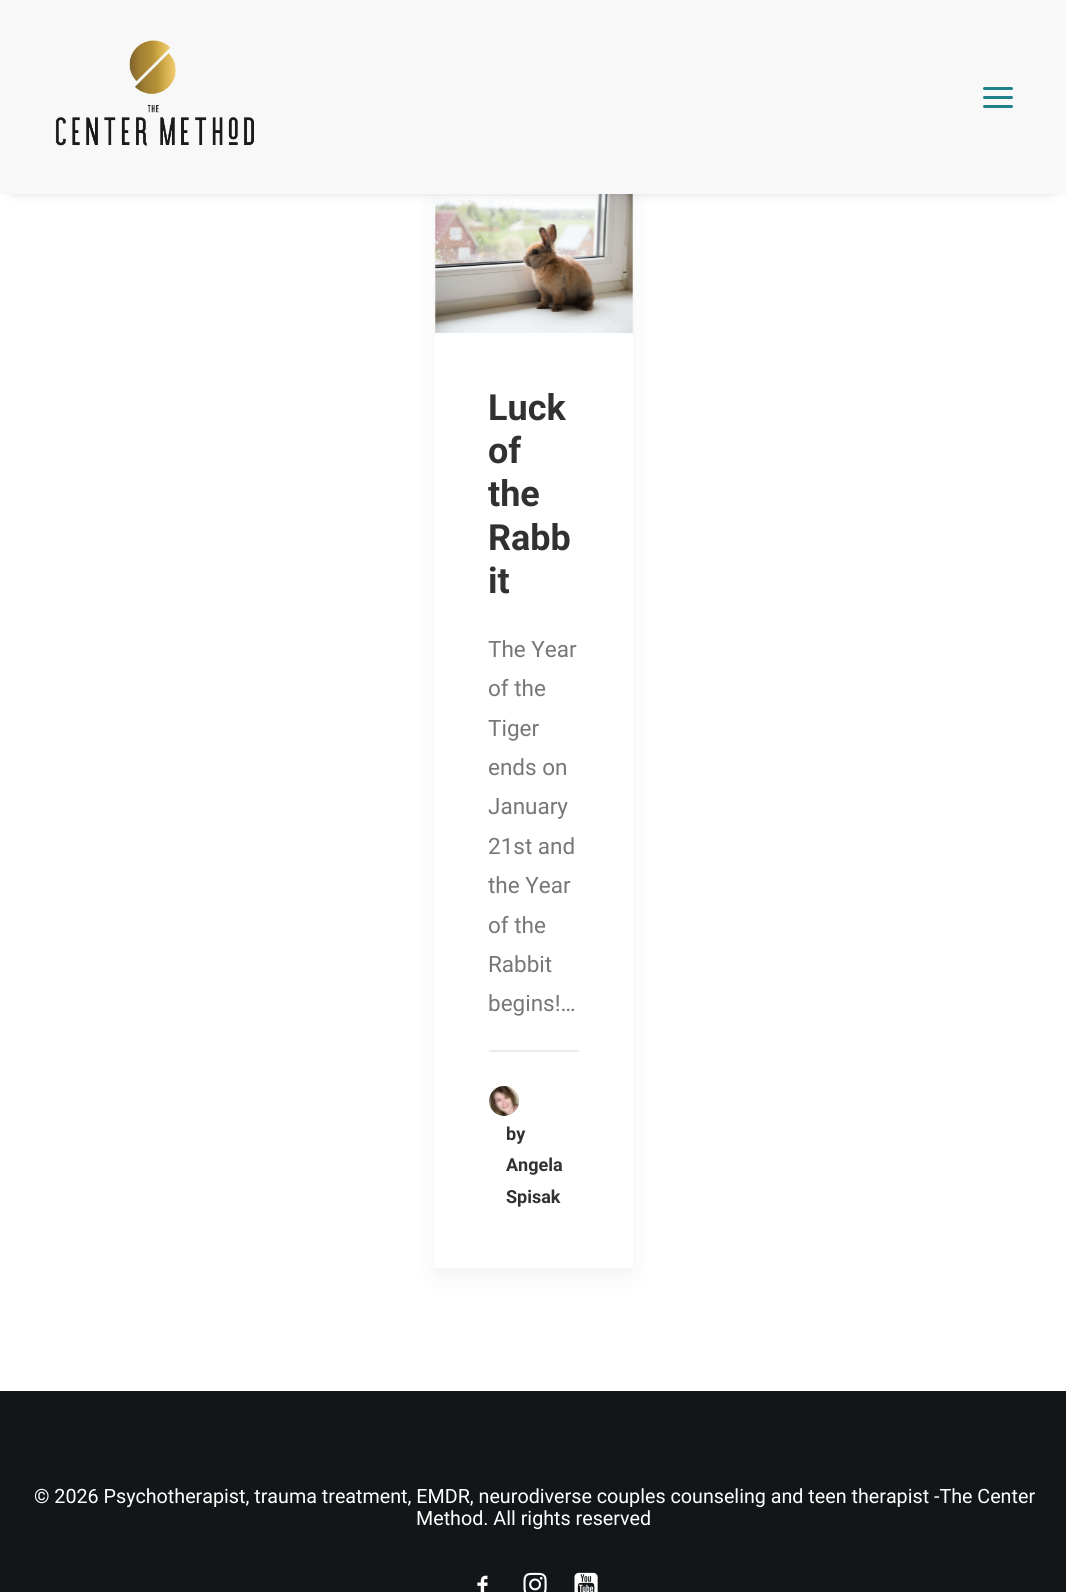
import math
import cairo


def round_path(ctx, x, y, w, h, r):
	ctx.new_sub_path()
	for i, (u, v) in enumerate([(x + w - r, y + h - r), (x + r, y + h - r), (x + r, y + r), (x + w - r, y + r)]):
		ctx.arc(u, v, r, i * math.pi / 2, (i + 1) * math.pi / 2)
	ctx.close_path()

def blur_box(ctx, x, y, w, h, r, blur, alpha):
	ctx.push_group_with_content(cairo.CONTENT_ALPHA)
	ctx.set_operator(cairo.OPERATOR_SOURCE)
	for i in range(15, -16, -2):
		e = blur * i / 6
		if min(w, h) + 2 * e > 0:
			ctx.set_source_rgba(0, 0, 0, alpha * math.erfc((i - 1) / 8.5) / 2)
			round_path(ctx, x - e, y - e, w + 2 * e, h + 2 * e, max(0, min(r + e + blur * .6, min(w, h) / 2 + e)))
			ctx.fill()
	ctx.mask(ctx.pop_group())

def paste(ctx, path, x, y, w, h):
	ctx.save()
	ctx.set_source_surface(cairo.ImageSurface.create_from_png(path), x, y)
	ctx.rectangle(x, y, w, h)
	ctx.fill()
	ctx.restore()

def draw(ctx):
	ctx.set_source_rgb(0.078, 0.086, 0.094)
	ctx.paint()
	ctx.set_source_rgb(1, 1, 1)
	ctx.rectangle(0, 194, 1066, 1197)
	ctx.fill()
	ctx.set_source_rgb(0, 0, 0)
	blur_box(ctx, 435, 194, 198, 1081, 0, 11, 0.05)
	ctx.set_source_rgb(1, 1, 1)
	ctx.rectangle(435, 194, 198, 1074)
	ctx.fill()
	paste(ctx, 'media/2.png', 435, 194, 198, 139)
	ctx.set_source_rgb(0, 0, 0)
	blur_box(ctx, 15, 21, 1037, 164, 0, 7.5, 0.6)
	ctx.set_source_rgb(0.969, 0.969, 0.969)
	ctx.rectangle(0, 0, 1066, 194)
	ctx.fill()
	paste(ctx, 'media/1.png', 55, 40, 199, 106)
	ctx.set_source_rgb(0.122, 0.506, 0.549)
	round_path(ctx, 983, 96, 30, 3, 1.5)
	ctx.fill()
	round_path(ctx, 983, 87, 30, 3, 1.5)
	ctx.fill()
	round_path(ctx, 983, 105, 30, 3, 1.5)
	ctx.fill()
	ctx.select_font_face('Roboto', cairo.FONT_SLANT_NORMAL, cairo.FONT_WEIGHT_BOLD)
	ctx.set_font_size(36)
	ctx.set_source_rgb(0.188, 0.192, 0.2)
	for x, y, s in [
		(488, 420, 'Luck'),
		(488, 463, 'of'),
		(488, 506, 'the'),
		(488, 550, 'Rabb'),
		(488, 593, 'it'),
	]:
		ctx.move_to(x, y)
		ctx.show_text(s)
	ctx.select_font_face('Roboto')
	ctx.set_font_size(22.5)
	ctx.set_source_rgb(0.467, 0.467, 0.467)
	for x, y, s in [
		(488, 657, 'The Year'),
		(488, 696, 'of the'),
		(488, 736, 'Tiger'),
		(488, 775, 'ends on'),
		(488, 814, 'January'),
		(488, 854, '21st and'),
		(488, 893, 'the Year'),
		(488, 933, 'of the'),
		(488, 972, 'Rabbit'),
		(488, 1011, 'begins!…'),
	]:
		ctx.move_to(x, y)
		ctx.show_text(s)
	ctx.set_source_rgb(0.918, 0.918, 0.918)
	ctx.rectangle(489, 1050, 90, 2)
	ctx.fill()
	paste(ctx, 'media/3.png', 489, 1086, 30, 30)
	ctx.select_font_face('Roboto', cairo.FONT_SLANT_NORMAL, cairo.FONT_WEIGHT_BOLD)
	ctx.set_font_size(18)
	ctx.set_source_rgb(0.188, 0.192, 0.2)
	for x, y, s in [
		(506, 1140, 'by'),
		(506, 1171, 'Angela'),
		(506, 1203, 'Spisak'),
	]:
		ctx.move_to(x, y)
		ctx.show_text(s)
	ctx.select_font_face('Roboto')
	ctx.set_font_size(19.7)
	ctx.set_source_rgb(1, 1, 1)
	ctx.move_to(34, 1503)
	ctx.show_text('© 2026 Psychotherapist, trauma treatment, EMDR, neurodiverse couples counseling and teen therapist -The Center')
	ctx.move_to(416, 1525)
	ctx.show_text('Method. All rights reserved')
	paste(ctx, 'media/4.png', 477, 1575, 11, 17)
	paste(ctx, 'media/5.png', 523, 1572, 24, 20)
	paste(ctx, 'media/6.png', 574, 1572, 24, 20)


surface = cairo.ImageSurface(cairo.FORMAT_RGB24, 1066, 1592)
ctx = cairo.Context(surface)
options = cairo.FontOptions()
options.set_hint_metrics(cairo.HINT_METRICS_OFF)
options.set_hint_style(cairo.HINT_STYLE_NONE)
ctx.set_font_options(options)
ctx.set_miter_limit(4)
draw(ctx)
surface.write_to_png('image.png')
